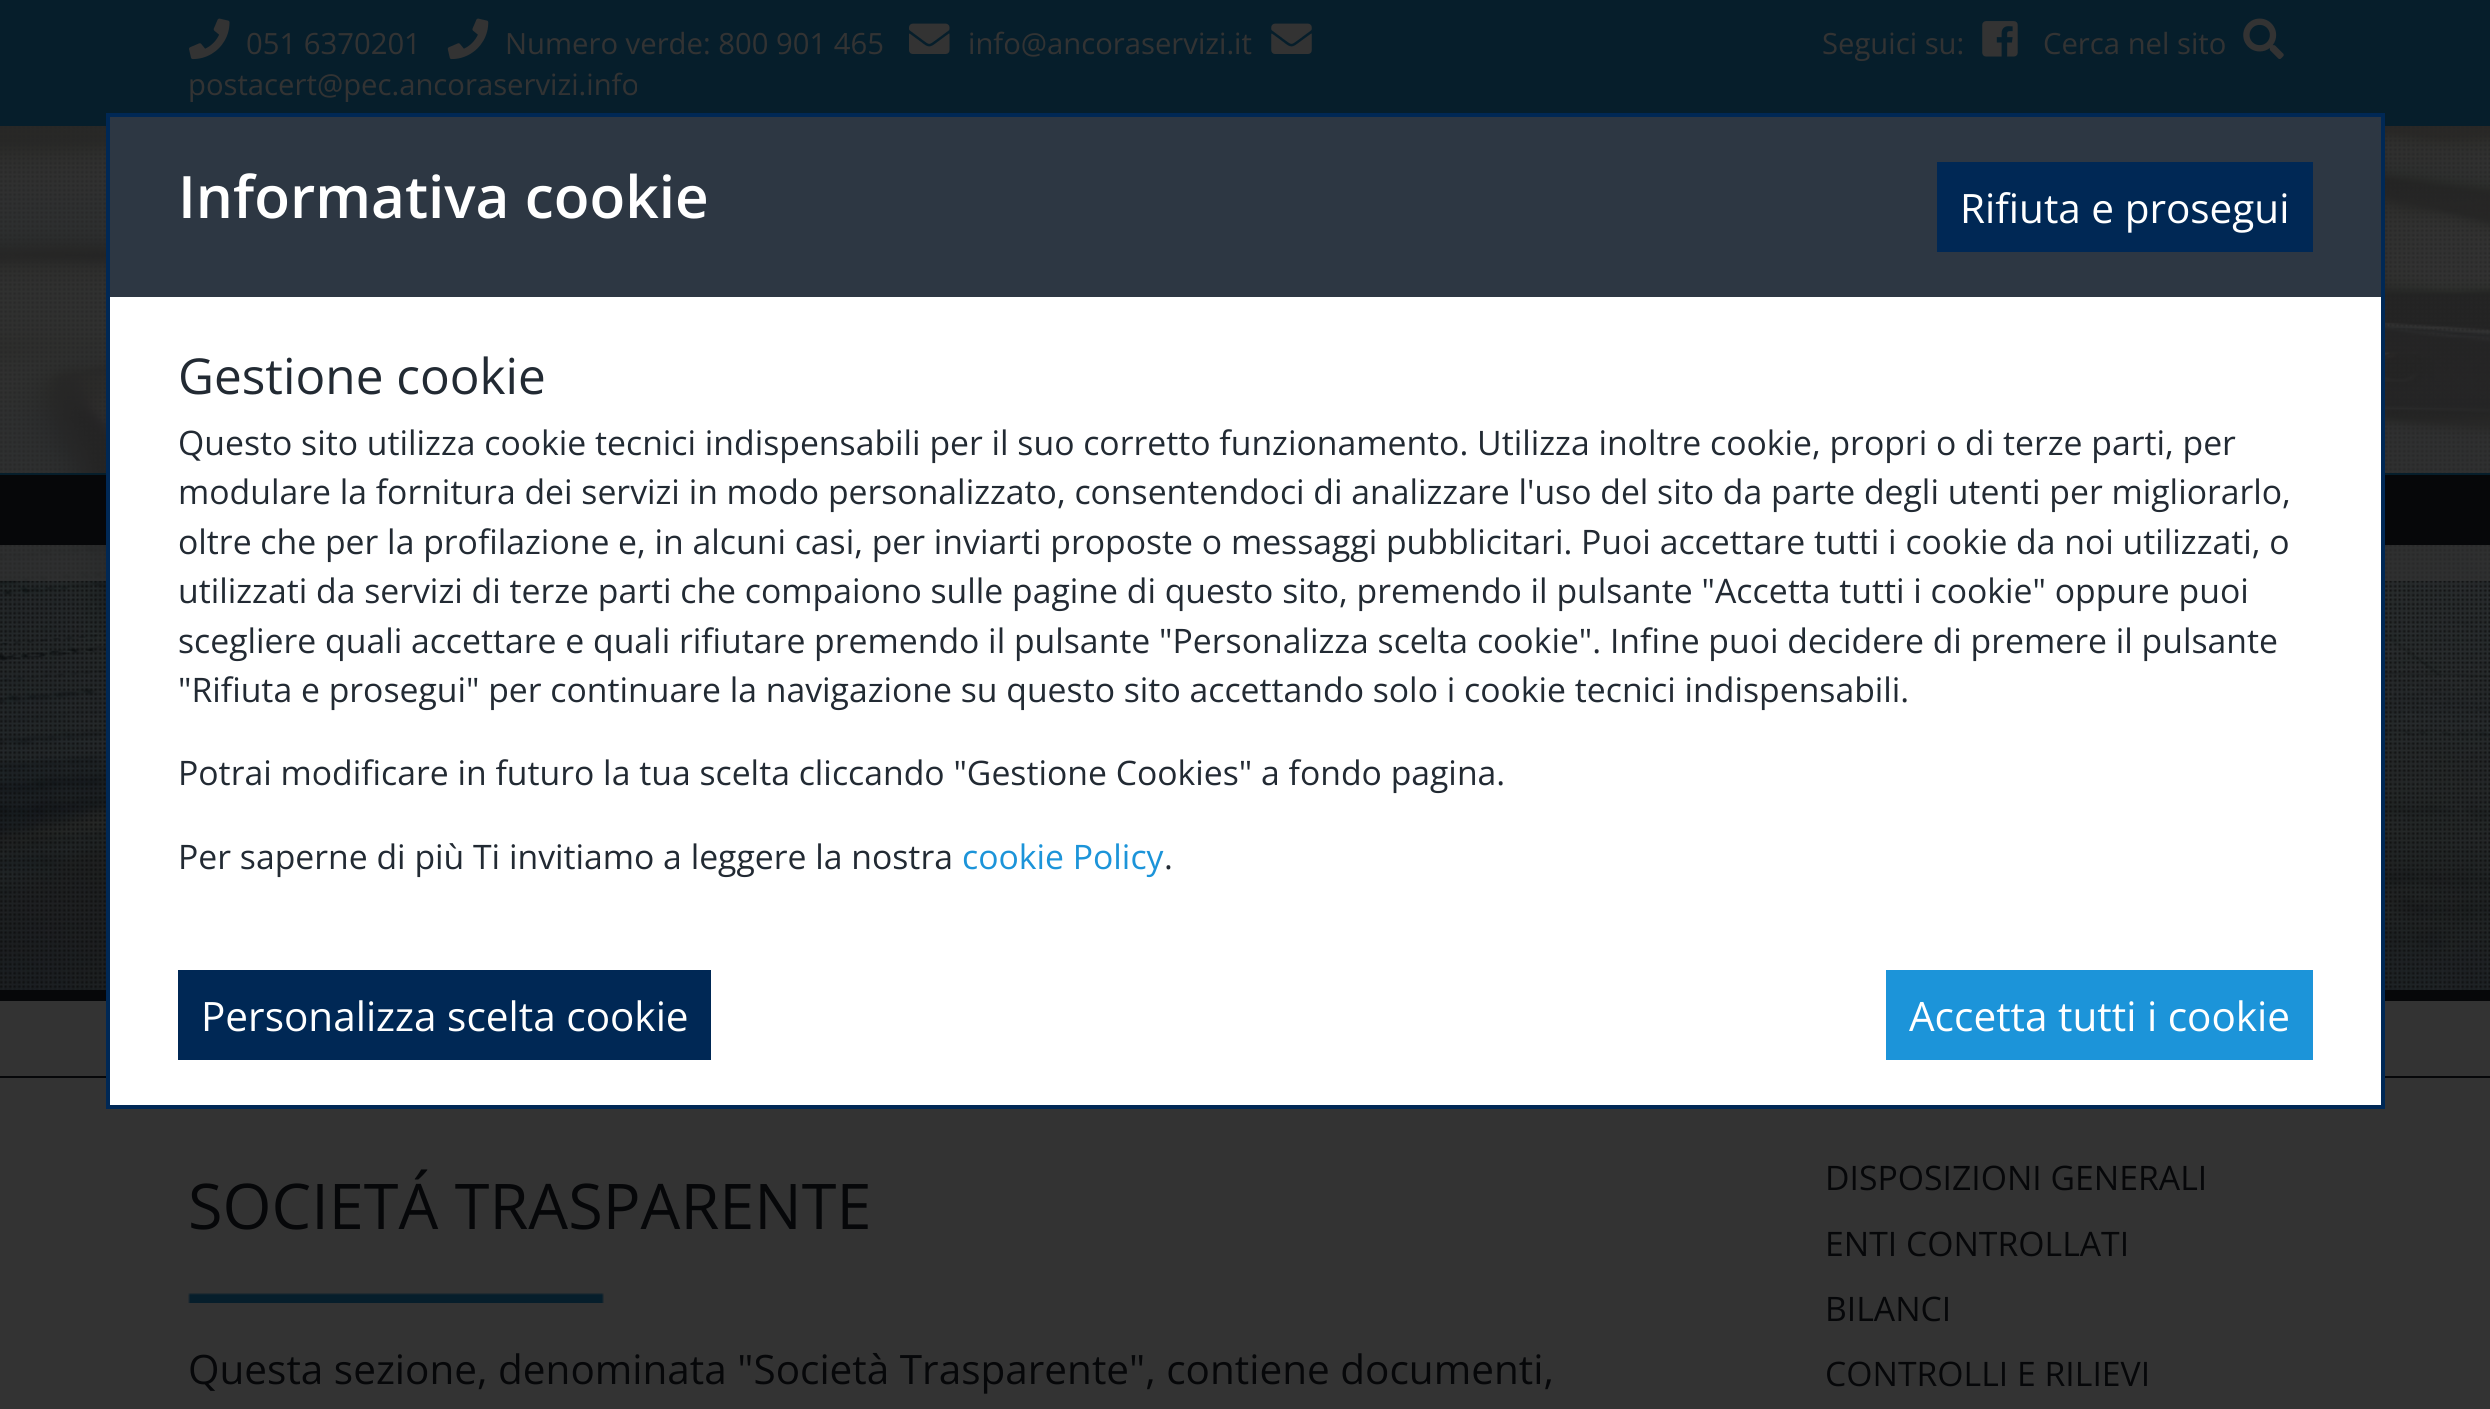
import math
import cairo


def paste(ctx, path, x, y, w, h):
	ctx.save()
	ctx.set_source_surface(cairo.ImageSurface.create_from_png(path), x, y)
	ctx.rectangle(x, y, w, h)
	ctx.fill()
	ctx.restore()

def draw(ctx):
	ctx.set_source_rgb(0.2, 0.2, 0.2)
	ctx.paint()
	ctx.set_source_rgb(0.024, 0.118, 0.169)
	ctx.rectangle(0, 0, 2490, 126)
	ctx.fill()
	paste(ctx, 'media/1.png', 189, 18, 41, 42)
	ctx.select_font_face('Open Sans')
	ctx.set_font_size(29.25)
	ctx.set_source_rgb(0.2, 0.2, 0.2)
	ctx.move_to(246, 54)
	ctx.show_text('051 6370201')
	paste(ctx, 'media/2.png', 447, 18, 42, 42)
	ctx.move_to(505, 54)
	ctx.show_text('Numero verde: 800 901 465')
	paste(ctx, 'media/3.png', 909, 23, 41, 31)
	ctx.move_to(968, 54)
	ctx.show_text('info@ancoraservizi.it')
	paste(ctx, 'media/4.png', 1271, 23, 41, 31)
	ctx.move_to(188, 95)
	ctx.show_text('postacert@pec.ancoraservizi.info')
	ctx.move_to(1822, 54)
	ctx.show_text('Seguici su:')
	paste(ctx, 'media/5.png', 1982, 21, 36, 36)
	ctx.move_to(2043, 54)
	ctx.show_text('Cerca nel sito')
	paste(ctx, 'media/6.png', 2243, 18, 41, 41)
	paste(ctx, 'media/7.png', 0, 126, 2490, 864)
	paste(ctx, 'media/8.png', 0, 126, 2490, 864)
	ctx.set_source_rgba(0.2, 0.2, 0.2, 0.7)
	ctx.rectangle(0, 126, 2490, 455)
	ctx.fill()
	ctx.set_source_rgb(0.027, 0.031, 0.039)
	ctx.rectangle(0, 475, 2490, 70)
	ctx.fill()
	ctx.set_source_rgb(0.024, 0.118, 0.169)
	ctx.rectangle(0, 473, 2490, 2)
	ctx.fill()
	ctx.set_source_rgb(0.027, 0.031, 0.039)
	ctx.rectangle(0, 990, 2490, 11)
	ctx.rectangle(0, 1076, 2490, 2)
	ctx.fill()
	ctx.rectangle(108.5, 115.5, 2274, 991)
	ctx.set_source_rgb(0, 0.157, 0.333)
	ctx.set_line_width(5)
	ctx.stroke()
	ctx.set_source_rgb(0.176, 0.216, 0.263)
	ctx.rectangle(110, 117, 2271, 180)
	ctx.fill()
	ctx.select_font_face('Open Sans SemiBold')
	ctx.set_font_size(58.5)
	ctx.set_source_rgb(1, 1, 1)
	ctx.move_to(178, 218)
	ctx.show_text('Informativa cookie')
	ctx.set_source_rgb(0, 0.157, 0.333)
	ctx.rectangle(1937, 162, 376, 90)
	ctx.fill()
	ctx.select_font_face('Open Sans')
	ctx.set_font_size(40.5)
	ctx.set_source_rgb(1, 1, 1)
	ctx.move_to(1960, 223)
	ctx.show_text('Rifiuta e prosegui')
	ctx.rectangle(110, 297, 2271, 808)
	ctx.fill()
	ctx.set_font_size(49.5)
	ctx.set_source_rgb(0.133, 0.165, 0.2)
	ctx.move_to(178, 394)
	ctx.show_text('Gestione cookie')
	ctx.set_font_size(33.75)
	for x, y, s in [
		(178, 455, 'Questo sito utilizza cookie tecnici indispensabili per il suo corretto funzionamento. Utilizza inoltre cookie, propri o di terze parti, per'),
		(178, 504, 'modulare la fornitura dei servizi in modo personalizzato, consentendoci di analizzare l\'uso del sito da parte degli utenti per migliorarlo,'),
		(178, 554, 'oltre che per la profilazione e, in alcuni casi, per inviarti proposte o messaggi pubblicitari. Puoi accettare tutti i cookie da noi utilizzati, o'),
		(178, 603, 'utilizzati da servizi di terze parti che compaiono sulle pagine di questo sito, premendo il pulsante "Accetta tutti i cookie" oppure puoi'),
		(178, 653, 'scegliere quali accettare e quali rifiutare premendo il pulsante "Personalizza scelta cookie". Infine puoi decidere di premere il pulsante'),
		(178, 702, '"Rifiuta e prosegui" per continuare la navigazione su questo sito accettando solo i cookie tecnici indispensabili.'),
		(178, 785, 'Potrai modificare in futuro la tua scelta cliccando "Gestione Cookies" a fondo pagina.'),
		(178, 869, 'Per saperne di più Ti invitiamo a leggere la nostra'),
	]:
		ctx.move_to(x, y)
		ctx.show_text(s)
	ctx.set_source_rgb(0.11, 0.58, 0.851)
	ctx.move_to(962, 869)
	ctx.show_text('cookie Policy')
	ctx.set_source_rgb(0.133, 0.165, 0.2)
	ctx.move_to(1164, 869)
	ctx.show_text('.')
	ctx.set_source_rgb(0, 0.157, 0.333)
	ctx.rectangle(178, 970, 533, 90)
	ctx.fill()
	ctx.set_font_size(40.5)
	ctx.set_source_rgb(1, 1, 1)
	ctx.move_to(201, 1031)
	ctx.show_text('Personalizza scelta cookie')
	ctx.set_source_rgb(0.11, 0.58, 0.851)
	ctx.rectangle(1886, 970, 427, 90)
	ctx.fill()
	ctx.set_source_rgb(1, 1, 1)
	ctx.move_to(1909, 1031)
	ctx.show_text('Accetta tutti i cookie')
	paste(ctx, 'media/9.png', 188, 1293, 416, 10)
	ctx.set_font_size(63)
	ctx.set_source_rgb(0.027, 0.031, 0.039)
	ctx.move_to(188, 1229)
	ctx.show_text('SOCIETÁ TRASPARENTE')
	ctx.set_font_size(40.5)
	ctx.move_to(188, 1384)
	ctx.show_text('Questa sezione, denominata "Società Trasparente", contiene documenti,')
	ctx.set_font_size(33.75)
	for x, y, s in [
		(1825, 1190, 'DISPOSIZIONI GENERALI'),
		(1825, 1256, 'ENTI CONTROLLATI'),
		(1825, 1321, 'BILANCI'),
		(1825, 1386, 'CONTROLLI E RILIEVI'),
	]:
		ctx.move_to(x, y)
		ctx.show_text(s)


surface = cairo.ImageSurface(cairo.FORMAT_RGB24, 2490, 1409)
ctx = cairo.Context(surface)
options = cairo.FontOptions()
options.set_hint_metrics(cairo.HINT_METRICS_OFF)
options.set_hint_style(cairo.HINT_STYLE_NONE)
ctx.set_font_options(options)
ctx.set_miter_limit(4)
draw(ctx)
surface.write_to_png('image.png')
